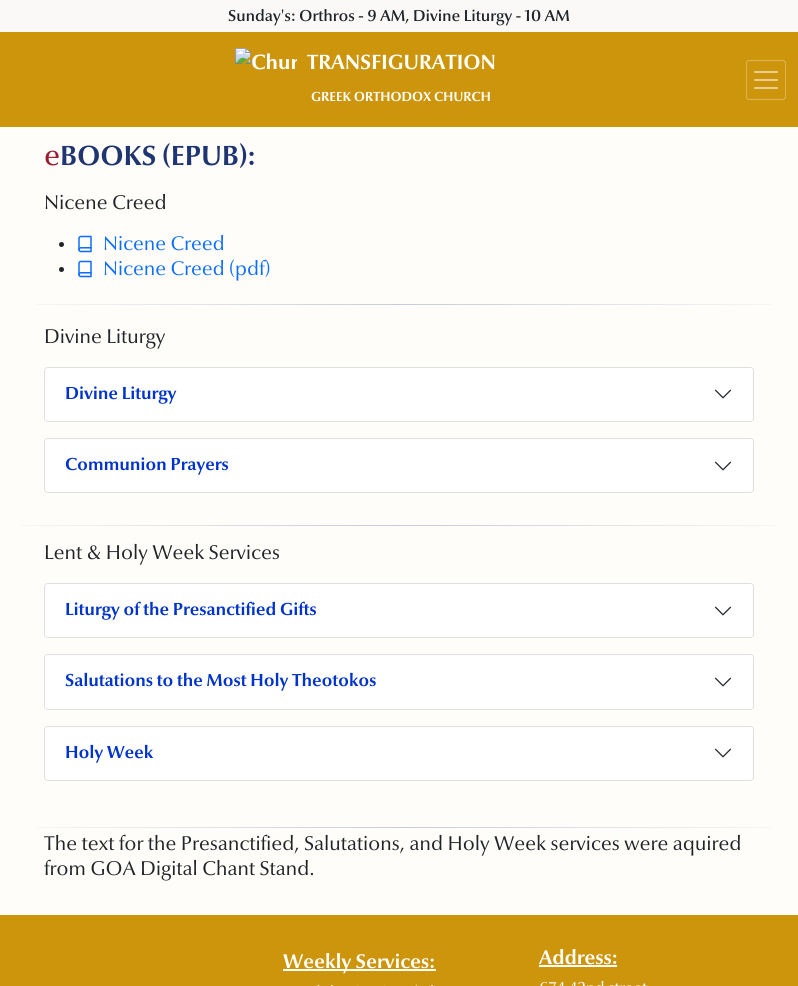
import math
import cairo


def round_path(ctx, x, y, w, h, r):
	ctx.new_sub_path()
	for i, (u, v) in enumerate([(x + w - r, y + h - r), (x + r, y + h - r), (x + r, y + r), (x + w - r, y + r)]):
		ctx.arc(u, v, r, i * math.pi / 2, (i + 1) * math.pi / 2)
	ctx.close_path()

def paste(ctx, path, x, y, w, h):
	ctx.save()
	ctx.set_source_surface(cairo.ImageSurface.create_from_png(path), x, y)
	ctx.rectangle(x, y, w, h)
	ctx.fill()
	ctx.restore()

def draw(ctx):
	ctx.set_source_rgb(0.996, 0.992, 0.976)
	ctx.paint()
	ctx.set_source_rgb(0.98, 0.976, 0.969)
	ctx.rectangle(0, 0, 798, 32)
	ctx.fill()
	paste(ctx, 'media/1.png', 228, 9, 341, 17)
	ctx.set_source_rgb(0.804, 0.584, 0.047)
	ctx.rectangle(0, 32, 798, 95)
	ctx.fill()
	paste(ctx, 'media/2.png', 235, 48, 62, 22)
	paste(ctx, 'media/3.png', 307, 54, 188, 16)
	paste(ctx, 'media/4.png', 311, 91, 179, 11)
	round_path(ctx, 746.2, 60.2, 39.6, 39.6, 3.8)
	ctx.set_source_rgb(0.914, 0.812, 0.573)
	ctx.set_line_width(0.4)
	ctx.stroke()
	round_path(ctx, 746.5, 60.5, 39, 39, 3.5)
	ctx.set_source_rgba(1, 1, 1, 0.1)
	ctx.set_line_width(1)
	ctx.stroke()
	paste(ctx, 'media/5.png', 754, 71, 24, 18)
	paste(ctx, 'media/6.png', 45, 150, 14, 16)
	paste(ctx, 'media/7.png', 62, 143, 192, 25)
	paste(ctx, 'media/8.png', 45, 193, 121, 17)
	ctx.set_source_rgb(0.129, 0.145, 0.161)
	ctx.arc(61.5, 244.5, 2.5, 0, 2 * math.pi)
	ctx.fill()
	paste(ctx, 'media/9.png', 78, 235, 14, 18)
	paste(ctx, 'media/10.png', 104, 235, 120, 16)
	ctx.arc(61.5, 269.5, 2.5, 0, 2 * math.pi)
	ctx.fill()
	paste(ctx, 'media/9.png', 78, 260, 14, 18)
	paste(ctx, 'media/11.png', 104, 259, 166, 22)
	gradient = cairo.LinearGradient(37, 305, 771, 305)
	gradient.add_color_stop_rgba(0, 0.965, 0.965, 0.957, 1)
	gradient.add_color_stop_rgba(0.5, 0.776, 0.796, 0.843, 1)
	gradient.add_color_stop_rgba(1, 0.965, 0.965, 0.957, 1)
	ctx.set_source(gradient)
	ctx.rectangle(37, 304, 734, 1)
	ctx.fill()
	paste(ctx, 'media/12.png', 45, 328, 121, 21)
	round_path(ctx, 44.5, 367.5, 709, 54, 3.5)
	ctx.set_source_rgb(0.875, 0.875, 0.875)
	ctx.stroke()
	ctx.set_source_rgb(1, 1, 1)
	round_path(ctx, 45, 368, 708, 53, 3)
	ctx.fill()
	paste(ctx, 'media/13.png', 66, 386, 111, 18)
	paste(ctx, 'media/14.png', 714, 389, 18, 10)
	round_path(ctx, 44.5, 438.5, 709, 54, 3.5)
	ctx.set_source_rgb(0.875, 0.875, 0.875)
	ctx.stroke()
	ctx.set_source_rgb(1, 1, 1)
	round_path(ctx, 45, 439, 708, 53, 3)
	ctx.fill()
	paste(ctx, 'media/15.png', 65, 457, 163, 18)
	paste(ctx, 'media/14.png', 714, 461, 18, 10)
	gradient = cairo.LinearGradient(21, 526, 777, 526)
	gradient.add_color_stop_rgba(0, 0.965, 0.965, 0.957, 1)
	gradient.add_color_stop_rgba(0.5, 0.776, 0.796, 0.843, 1)
	gradient.add_color_stop_rgba(1, 0.965, 0.965, 0.957, 1)
	ctx.set_source(gradient)
	ctx.rectangle(21, 525, 756, 1)
	ctx.fill()
	paste(ctx, 'media/16.png', 45, 543, 234, 22)
	round_path(ctx, 44.5, 583.5, 709, 54, 3.5)
	ctx.set_source_rgb(0.875, 0.875, 0.875)
	ctx.stroke()
	ctx.set_source_rgb(1, 1, 1)
	round_path(ctx, 45, 584, 708, 53, 3)
	ctx.fill()
	paste(ctx, 'media/17.png', 66, 601, 250, 19)
	paste(ctx, 'media/14.png', 714, 606, 18, 10)
	round_path(ctx, 44.5, 654.5, 709, 55, 3.5)
	ctx.set_source_rgb(0.875, 0.875, 0.875)
	ctx.stroke()
	ctx.set_source_rgb(1, 1, 1)
	round_path(ctx, 45, 655, 708, 54, 3)
	ctx.fill()
	paste(ctx, 'media/18.png', 65, 672, 311, 19)
	paste(ctx, 'media/14.png', 714, 677, 18, 10)
	round_path(ctx, 44.5, 726.5, 709, 54, 3.5)
	ctx.set_source_rgb(0.875, 0.875, 0.875)
	ctx.stroke()
	ctx.set_source_rgb(1, 1, 1)
	round_path(ctx, 45, 727, 708, 53, 3)
	ctx.fill()
	paste(ctx, 'media/19.png', 66, 744, 88, 19)
	paste(ctx, 'media/14.png', 714, 748, 18, 10)
	gradient = cairo.LinearGradient(37, 828, 771, 828)
	gradient.add_color_stop_rgba(0, 0.965, 0.965, 0.957, 1)
	gradient.add_color_stop_rgba(0.5, 0.776, 0.796, 0.843, 1)
	gradient.add_color_stop_rgba(1, 0.965, 0.965, 0.957, 1)
	ctx.set_source(gradient)
	ctx.rectangle(37, 827, 734, 1)
	ctx.fill()
	paste(ctx, 'media/20.png', 44, 834, 696, 22)
	paste(ctx, 'media/21.png', 44, 859, 270, 22)
	ctx.set_source_rgb(0.804, 0.584, 0.047)
	ctx.rectangle(0, 915, 798, 71)
	ctx.fill()
	ctx.set_source_rgb(1, 1, 1)
	ctx.rectangle(283, 969, 153, 2)
	ctx.fill()
	paste(ctx, 'media/22.png', 283, 953, 151, 21)
	paste(ctx, 'media/23.png', 317, 984, 116, 2)
	paste(ctx, 'media/24.png', 539, 949, 78, 16)
	ctx.rectangle(539, 965, 78, 2)
	ctx.fill()
	paste(ctx, 'media/25.png', 540, 981, 107, 5)


surface = cairo.ImageSurface(cairo.FORMAT_RGB24, 798, 986)
ctx = cairo.Context(surface)
options = cairo.FontOptions()
options.set_hint_metrics(cairo.HINT_METRICS_OFF)
options.set_hint_style(cairo.HINT_STYLE_NONE)
ctx.set_font_options(options)
ctx.set_miter_limit(4)
draw(ctx)
surface.write_to_png('image.png')
